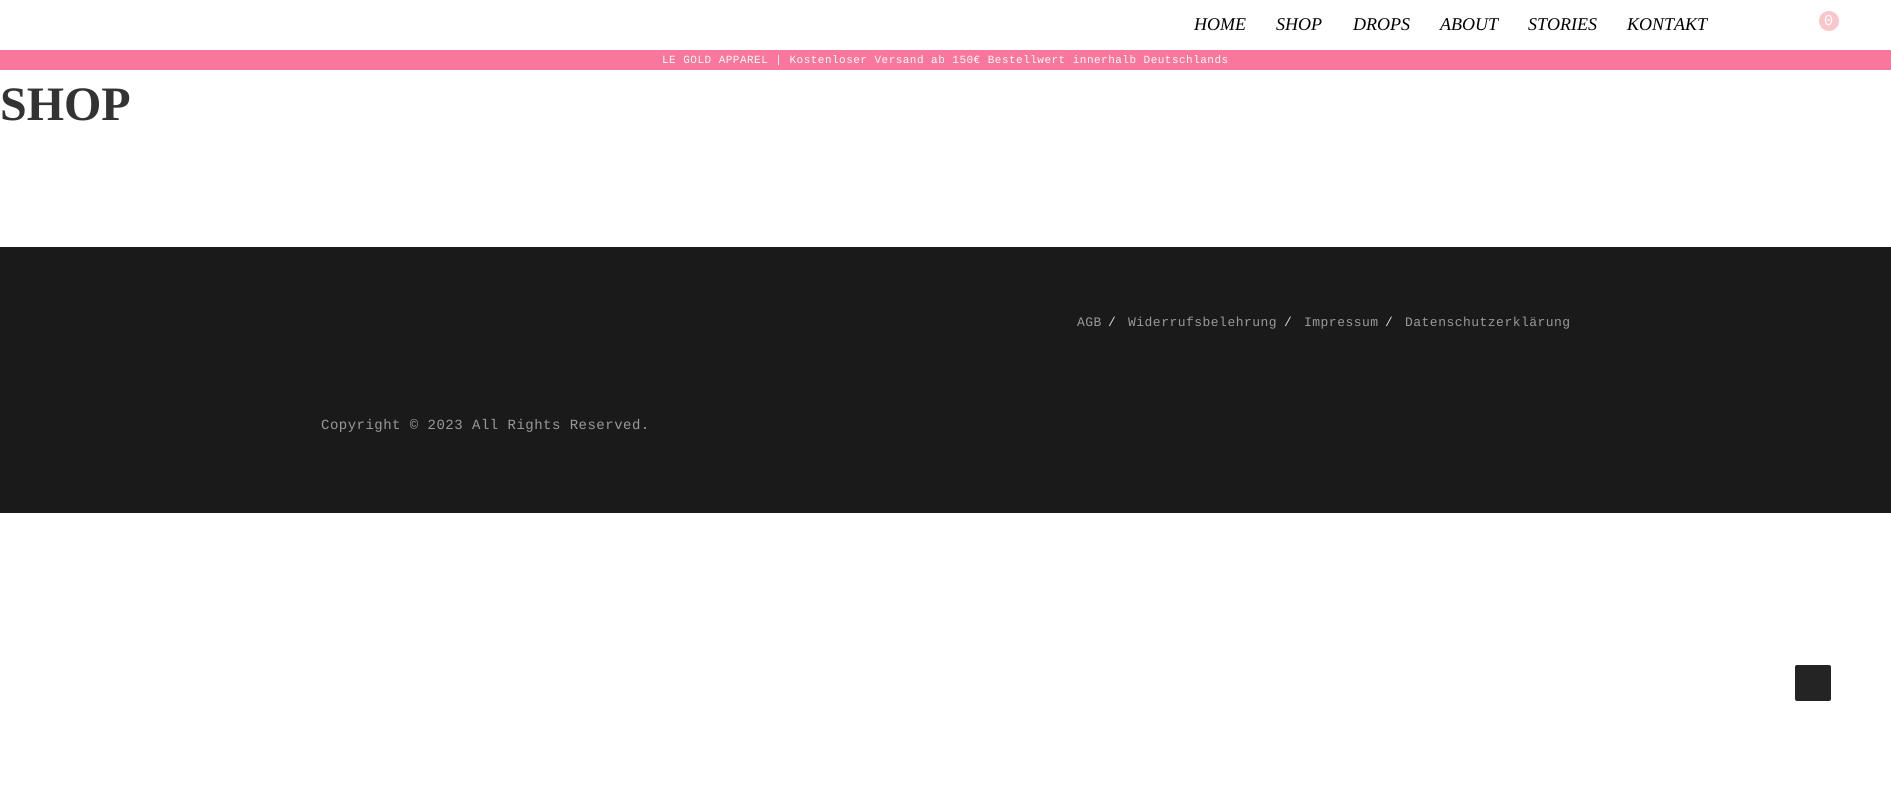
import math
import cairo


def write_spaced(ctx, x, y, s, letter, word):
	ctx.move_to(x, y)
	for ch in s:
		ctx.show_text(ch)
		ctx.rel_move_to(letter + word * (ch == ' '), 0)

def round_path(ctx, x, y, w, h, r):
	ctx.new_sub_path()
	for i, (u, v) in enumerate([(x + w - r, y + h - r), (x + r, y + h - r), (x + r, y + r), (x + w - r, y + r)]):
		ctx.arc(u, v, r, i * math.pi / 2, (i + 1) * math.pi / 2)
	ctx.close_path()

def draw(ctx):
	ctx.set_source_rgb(1, 1, 1)
	ctx.paint()
	ctx.select_font_face('Liberation Serif', cairo.FONT_SLANT_ITALIC)
	ctx.set_font_size(18)
	ctx.set_source_rgb(0, 0, 0)
	for x, y, s in [
		(1194, 30, 'HOME'),
		(1276, 30, 'SHOP'),
		(1353, 30, 'DROPS'),
		(1440, 30, 'ABOUT'),
		(1528, 30, 'STORIES'),
		(1627, 30, 'KONTAKT'),
	]:
		ctx.move_to(x, y)
		ctx.show_text(s)
	ctx.set_source_rgb(0.973, 0.78, 0.792)
	ctx.new_path()
	ctx.arc(1829, 21, 10, 0, 2 * math.pi)
	ctx.fill()
	ctx.select_font_face('Liberation Mono')
	ctx.set_font_size(15)
	ctx.set_source_rgb(1, 1, 1)
	ctx.move_to(1824, 25)
	ctx.show_text('0')
	ctx.set_source_rgb(0.973, 0.467, 0.612)
	ctx.rectangle(0, 50, 1891, 20)
	ctx.fill()
	ctx.set_font_size(11)
	ctx.set_source_rgb(1, 1, 1)
	write_spaced(ctx, 662, 63, 'LE GOLD APPAREL | Kostenloser Versand ab 150€ Bestellwert innerhalb Deutschlands', 0.48, 0)
	ctx.select_font_face('Liberation Serif', cairo.FONT_SLANT_NORMAL, cairo.FONT_WEIGHT_BOLD)
	ctx.set_font_size(48)
	ctx.set_source_rgb(0.2, 0.2, 0.2)
	ctx.move_to(0, 120)
	ctx.show_text('SHOP')
	ctx.set_source_rgb(0.102, 0.102, 0.102)
	ctx.rectangle(0, 247, 1891, 266)
	ctx.fill()
	ctx.select_font_face('Liberation Mono')
	ctx.set_font_size(13)
	ctx.set_source_rgb(0.6, 0.6, 0.6)
	write_spaced(ctx, 1077, 326, 'AGB', 0.48, 0)
	ctx.set_source_rgb(0.835, 0.835, 0.835)
	write_spaced(ctx, 1108, 326, '/', 0.48, 0)
	ctx.set_source_rgb(0.6, 0.6, 0.6)
	write_spaced(ctx, 1128, 326, 'Widerrufsbelehrung', 0.48, 0)
	ctx.set_source_rgb(0.835, 0.835, 0.835)
	write_spaced(ctx, 1284, 326, '/', 0.48, 0)
	ctx.set_source_rgb(0.6, 0.6, 0.6)
	write_spaced(ctx, 1304, 326, 'Impressum', 0.48, 0)
	ctx.set_source_rgb(0.835, 0.835, 0.835)
	write_spaced(ctx, 1385, 326, '/', 0.48, 0)
	ctx.set_source_rgb(0.6, 0.6, 0.6)
	write_spaced(ctx, 1405, 326, 'Datenschutzerklärung', 0.48, 0)
	ctx.set_font_size(14)
	write_spaced(ctx, 321, 429, 'Copyright © 2023 All Rights Reserved.', 0.48, 0)
	ctx.set_source_rgb(0.141, 0.141, 0.141)
	round_path(ctx, 1795, 665, 36, 36, 2)
	ctx.fill()


surface = cairo.ImageSurface(cairo.FORMAT_RGB24, 1891, 801)
ctx = cairo.Context(surface)
options = cairo.FontOptions()
options.set_hint_metrics(cairo.HINT_METRICS_OFF)
options.set_hint_style(cairo.HINT_STYLE_NONE)
ctx.set_font_options(options)
ctx.set_miter_limit(4)
draw(ctx)
surface.write_to_png('image.png')
